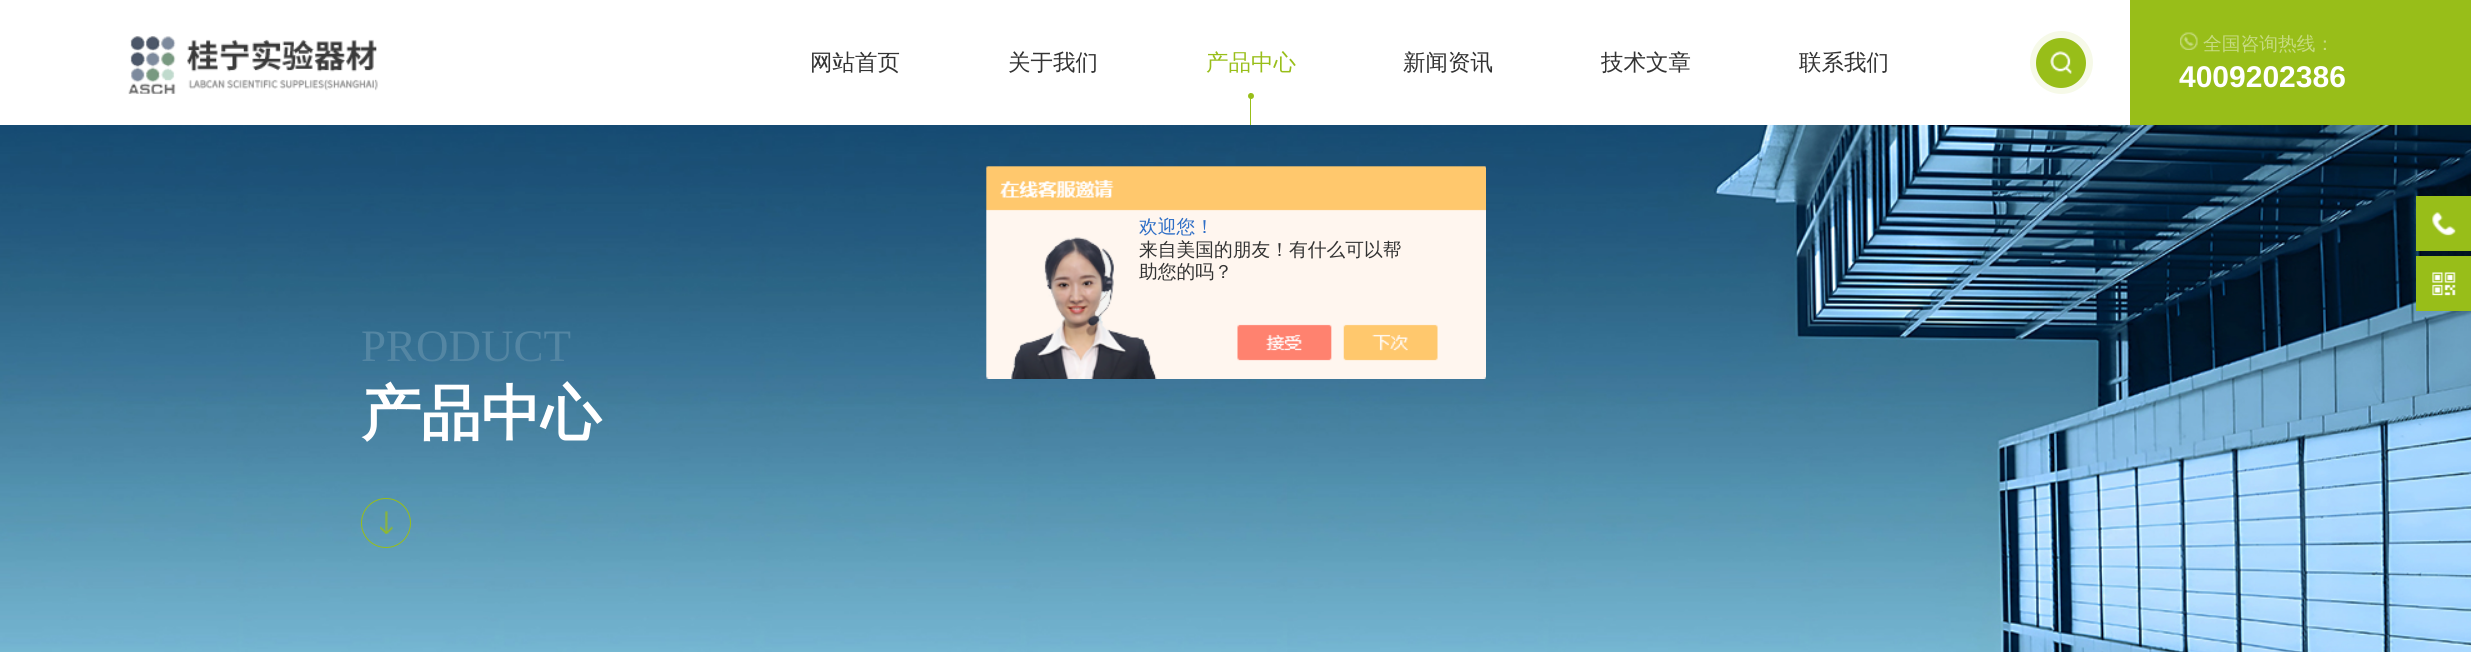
import math
import cairo


def paste(ctx, path, x, y, w, h):
	ctx.save()
	ctx.set_source_surface(cairo.ImageSurface.create_from_png(path), x, y)
	ctx.rectangle(x, y, w, h)
	ctx.fill()
	ctx.restore()

def draw(ctx):
	ctx.set_source_rgb(1, 1, 1)
	ctx.paint()
	paste(ctx, 'media/1.png', 128, 36, 250, 58)
	ctx.select_font_face('WenQuanYi Zen Hei Medium')
	ctx.set_font_size(22.5)
	ctx.set_source_rgb(0.2, 0.2, 0.2)
	ctx.move_to(810, 70)
	ctx.show_text('网站首页')
	ctx.move_to(1008, 70)
	ctx.show_text('关于我们')
	ctx.set_source_rgb(0.596, 0.745, 0.098)
	ctx.move_to(1206, 70)
	ctx.show_text('产品中心')
	ctx.rectangle(1250, 93, 1, 32)
	ctx.fill()
	ctx.arc(1251, 96, 3, 0, 2 * math.pi)
	ctx.fill()
	ctx.set_source_rgb(0.2, 0.2, 0.2)
	for x, y, s in [
		(1403, 70, '新闻资讯'),
		(1601, 70, '技术文章'),
		(1799, 70, '联系我们'),
	]:
		ctx.move_to(x, y)
		ctx.show_text(s)
	ctx.set_source_rgb(0.961, 0.976, 0.91)
	ctx.new_path()
	ctx.arc(2061.5, 62.5, 31.5, 0, 2 * math.pi)
	ctx.fill()
	ctx.set_source_rgb(0.596, 0.745, 0.098)
	ctx.arc(2061, 63, 25, 0, 2 * math.pi)
	ctx.fill()
	paste(ctx, 'media/2.png', 2050, 51, 22, 23)
	ctx.rectangle(2130, 0, 341, 125)
	ctx.fill()
	paste(ctx, 'media/3.png', 2180, 32, 18, 18)
	ctx.set_font_size(18.75)
	ctx.set_source_rgb(0.776, 0.859, 0.506)
	ctx.move_to(2203, 50)
	ctx.show_text('全国咨询热线：')
	ctx.select_font_face('Liberation Sans', cairo.FONT_SLANT_NORMAL, cairo.FONT_WEIGHT_BOLD)
	ctx.set_font_size(30)
	ctx.set_source_rgb(1, 1, 1)
	ctx.move_to(2179, 87)
	ctx.show_text('4009202386')
	paste(ctx, 'media/7.png', 0, 125, 2471, 527)
	paste(ctx, 'media/4.png', 986, 166, 500, 213)
	ctx.select_font_face('WenQuanYi Zen Hei Medium')
	ctx.set_font_size(18.75)
	ctx.set_source_rgb(0.18, 0.431, 0.776)
	ctx.move_to(1139, 233)
	ctx.show_text('欢迎您！')
	ctx.set_source_rgb(0.2, 0.2, 0.2)
	ctx.move_to(1139, 256)
	ctx.show_text('来自美国的朋友！有什么可以帮')
	ctx.move_to(1139, 278)
	ctx.show_text('助您的吗？')
	ctx.set_source_rgb(0.596, 0.745, 0.098)
	ctx.rectangle(2416, 196, 55, 55)
	ctx.fill()
	paste(ctx, 'media/5.png', 2432, 212, 24, 24)
	ctx.rectangle(2416, 256, 55, 55)
	ctx.fill()
	paste(ctx, 'media/6.png', 2432, 272, 24, 24)
	ctx.select_font_face('Liberation Serif')
	ctx.set_font_size(45)
	ctx.set_source_rgb(0.329, 0.525, 0.639)
	ctx.move_to(361, 361)
	ctx.show_text('PRODUCT')
	ctx.select_font_face('WenQuanYi Zen Hei', cairo.FONT_SLANT_NORMAL, cairo.FONT_WEIGHT_BOLD)
	ctx.set_font_size(60)
	ctx.set_source_rgb(1, 1, 1)
	ctx.move_to(361, 434)
	ctx.show_text('产品中心')
	paste(ctx, 'media/8.png', 380, 511, 13, 23)
	ctx.arc(386, 523, 24.5, 0, 2 * math.pi)
	ctx.set_source_rgb(0.596, 0.745, 0.098)
	ctx.set_line_width(1)
	ctx.stroke()


surface = cairo.ImageSurface(cairo.FORMAT_RGB24, 2471, 652)
ctx = cairo.Context(surface)
options = cairo.FontOptions()
options.set_hint_metrics(cairo.HINT_METRICS_OFF)
options.set_hint_style(cairo.HINT_STYLE_NONE)
ctx.set_font_options(options)
ctx.set_miter_limit(4)
draw(ctx)
surface.write_to_png('image.png')
